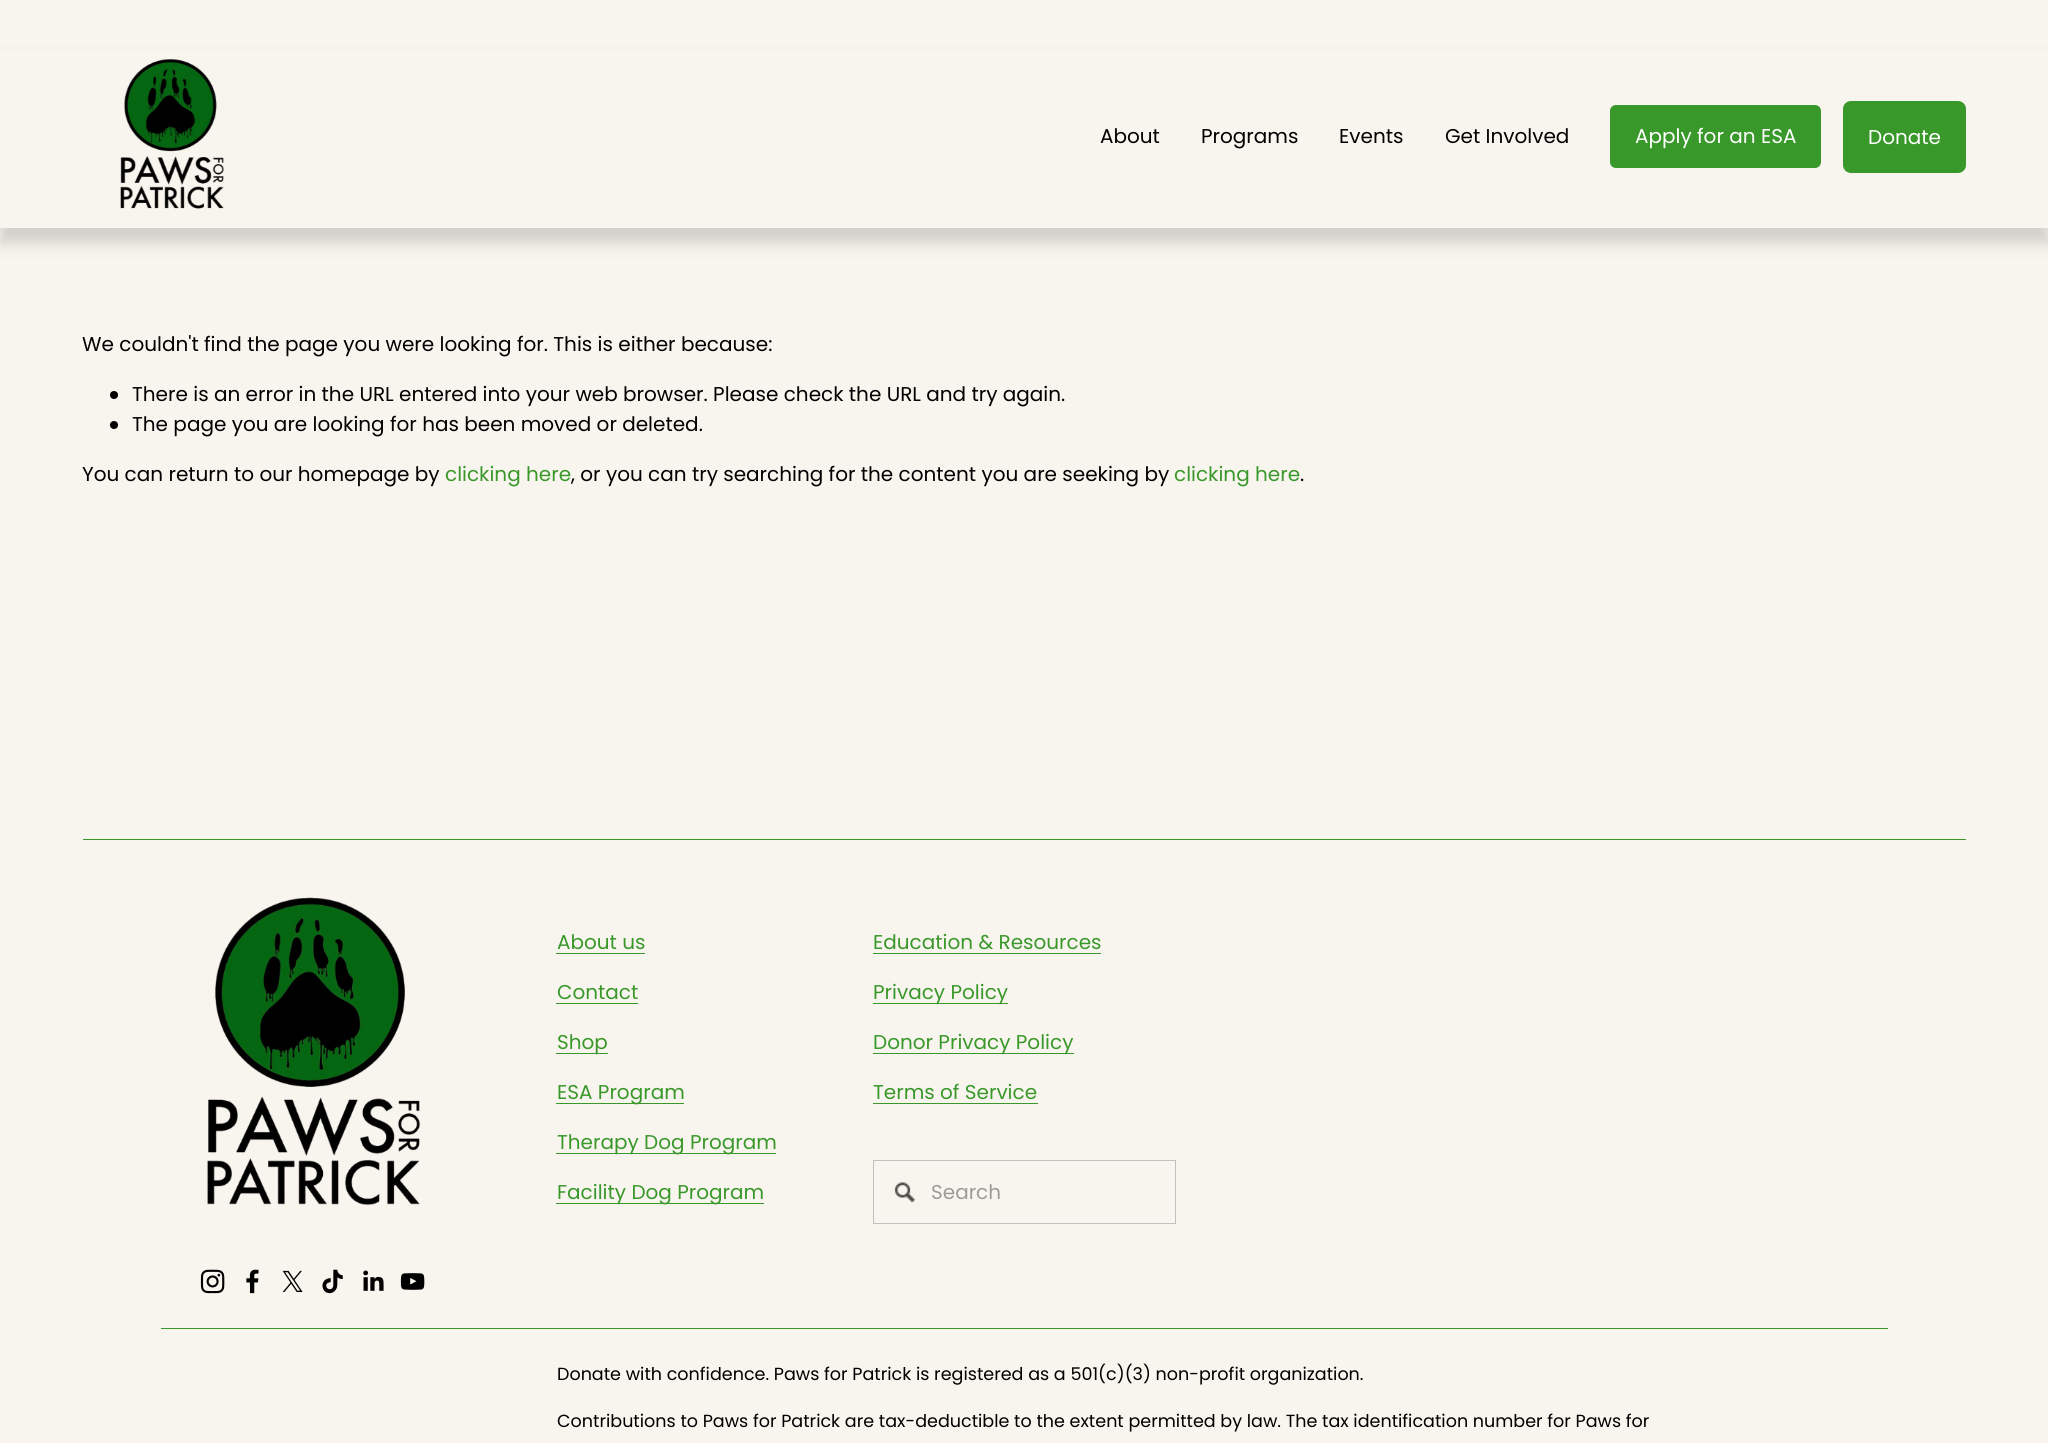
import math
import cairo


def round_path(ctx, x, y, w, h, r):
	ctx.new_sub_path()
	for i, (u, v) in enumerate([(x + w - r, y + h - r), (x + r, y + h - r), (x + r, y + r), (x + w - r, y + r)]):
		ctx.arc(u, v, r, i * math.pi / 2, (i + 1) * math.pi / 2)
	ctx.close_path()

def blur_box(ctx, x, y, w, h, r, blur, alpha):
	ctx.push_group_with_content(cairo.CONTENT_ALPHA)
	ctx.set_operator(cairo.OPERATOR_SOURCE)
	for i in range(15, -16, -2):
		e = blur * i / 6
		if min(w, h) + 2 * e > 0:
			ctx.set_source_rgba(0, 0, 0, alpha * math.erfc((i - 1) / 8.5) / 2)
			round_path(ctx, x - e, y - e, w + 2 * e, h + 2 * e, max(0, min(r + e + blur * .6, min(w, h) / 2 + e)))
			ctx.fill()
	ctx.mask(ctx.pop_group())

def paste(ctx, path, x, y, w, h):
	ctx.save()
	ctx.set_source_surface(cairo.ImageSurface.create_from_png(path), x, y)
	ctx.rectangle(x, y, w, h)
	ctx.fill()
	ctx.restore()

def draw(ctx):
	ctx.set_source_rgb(0.969, 0.957, 0.933)
	ctx.paint()
	ctx.set_source_rgb(0.824, 0.812, 0.792)
	blur_box(ctx, 0, 61, 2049, 182, 0, 7.5, 1)
	ctx.set_source_rgb(0.969, 0.957, 0.933)
	ctx.rectangle(0, 50, 2048, 178)
	ctx.fill()
	paste(ctx, 'media/1.png', 120, 59, 104, 150)
	ctx.select_font_face('Poppins')
	ctx.set_font_size(20)
	ctx.set_source_rgb(0, 0, 0)
	for x, y, s in [
		(1100, 143, 'About'),
		(1201, 143, 'Programs'),
		(1339, 143, 'Events'),
		(1445, 143, 'Get Involved'),
	]:
		ctx.move_to(x, y)
		ctx.show_text(s)
	ctx.set_source_rgb(0.224, 0.596, 0.165)
	round_path(ctx, 1610, 105, 211, 63, 6)
	ctx.fill()
	ctx.set_source_rgb(1, 1, 1)
	ctx.move_to(1635, 143)
	ctx.show_text('Apply for an ESA')
	ctx.set_source_rgb(0.224, 0.596, 0.165)
	round_path(ctx, 1843, 101, 123, 72, 8)
	ctx.fill()
	ctx.set_source_rgb(1, 1, 1)
	ctx.move_to(1868, 144)
	ctx.show_text('Donate')
	ctx.set_source_rgb(0, 0, 0)
	ctx.move_to(82, 351)
	ctx.show_text('We couldn\'t find the page you were looking for. This is either because:')
	ctx.new_path()
	ctx.arc(114, 395, 4, 0, 2 * math.pi)
	ctx.fill()
	ctx.move_to(132, 401)
	ctx.show_text('There is an error in the URL entered into your web browser. Please check the URL and try again.')
	ctx.new_path()
	ctx.arc(114, 425, 4, 0, 2 * math.pi)
	ctx.fill()
	ctx.move_to(132, 431)
	ctx.show_text('The page you are looking for has been moved or deleted.')
	ctx.move_to(82, 481)
	ctx.show_text('You can return to our homepage by')
	ctx.set_source_rgb(0.224, 0.596, 0.165)
	ctx.move_to(445, 481)
	ctx.show_text('clicking here')
	ctx.set_source_rgb(0, 0, 0)
	ctx.move_to(571, 481)
	ctx.show_text(', or you can try searching for the content you are seeking by')
	ctx.set_source_rgb(0.224, 0.596, 0.165)
	ctx.move_to(1174, 481)
	ctx.show_text('clicking here')
	ctx.set_source_rgb(0, 0, 0)
	ctx.move_to(1300, 481)
	ctx.show_text('.')
	ctx.set_source_rgb(0.224, 0.596, 0.165)
	ctx.rectangle(83, 839, 1883, 1)
	ctx.fill()
	paste(ctx, 'media/2.png', 207, 897, 214, 308)
	ctx.move_to(557, 949)
	ctx.show_text('About us')
	ctx.rectangle(556, 953, 89, 1)
	ctx.fill()
	ctx.move_to(557, 999)
	ctx.show_text('Contact')
	ctx.rectangle(556, 1003, 82, 1)
	ctx.fill()
	ctx.rectangle(556, 1053, 52, 1)
	ctx.fill()
	ctx.move_to(557, 1049)
	ctx.show_text('Shop')
	ctx.rectangle(556, 1103, 128, 1)
	ctx.fill()
	ctx.move_to(557, 1099)
	ctx.show_text('ESA Program')
	ctx.rectangle(556, 1153, 220, 1)
	ctx.fill()
	ctx.move_to(557, 1149)
	ctx.show_text('Therapy Dog Program')
	ctx.rectangle(556, 1203, 208, 1)
	ctx.fill()
	ctx.move_to(557, 1199)
	ctx.show_text('Facility Dog Program')
	ctx.move_to(873, 949)
	ctx.show_text('Education & Resources')
	ctx.rectangle(873, 953, 228, 1)
	ctx.fill()
	ctx.rectangle(873, 1003, 135, 1)
	ctx.fill()
	ctx.move_to(873, 999)
	ctx.show_text('Privacy Policy')
	ctx.rectangle(873, 1053, 201, 1)
	ctx.fill()
	ctx.move_to(873, 1049)
	ctx.show_text('Donor Privacy Policy')
	ctx.move_to(873, 1099)
	ctx.show_text('Terms of Service')
	ctx.rectangle(873, 1103, 165, 1)
	ctx.fill()
	paste(ctx, 'media/3.png', 894, 1182, 22, 21)
	ctx.rectangle(873.5, 1160.5, 302, 63)
	ctx.set_source_rgb(0.757, 0.753, 0.745)
	ctx.set_line_width(1)
	ctx.stroke()
	ctx.set_source_rgb(0.612, 0.608, 0.6)
	ctx.move_to(931, 1199)
	ctx.show_text('Search')
	paste(ctx, 'media/4.png', 200, 1269, 25, 25)
	paste(ctx, 'media/5.png', 246, 1269, 13, 25)
	paste(ctx, 'media/6.png', 282, 1270, 21, 22)
	paste(ctx, 'media/7.png', 322, 1269, 21, 25)
	paste(ctx, 'media/8.png', 363, 1270, 21, 21)
	paste(ctx, 'media/9.png', 400, 1273, 25, 17)
	ctx.set_source_rgb(0.224, 0.596, 0.165)
	ctx.rectangle(161, 1328, 1727, 1)
	ctx.fill()
	ctx.set_font_size(17.55)
	ctx.set_source_rgb(0, 0, 0)
	ctx.move_to(557, 1380)
	ctx.show_text('Donate with confidence. Paws for Patrick is registered as a 501(c)(3) non-profit organization.')
	ctx.move_to(557, 1427)
	ctx.show_text('Contributions to Paws for Patrick are tax-deductible to the extent permitted by law. The tax identification number for Paws for')


surface = cairo.ImageSurface(cairo.FORMAT_RGB24, 2048, 1443)
ctx = cairo.Context(surface)
options = cairo.FontOptions()
options.set_hint_metrics(cairo.HINT_METRICS_OFF)
options.set_hint_style(cairo.HINT_STYLE_NONE)
ctx.set_font_options(options)
ctx.set_miter_limit(4)
draw(ctx)
surface.write_to_png('image.png')
